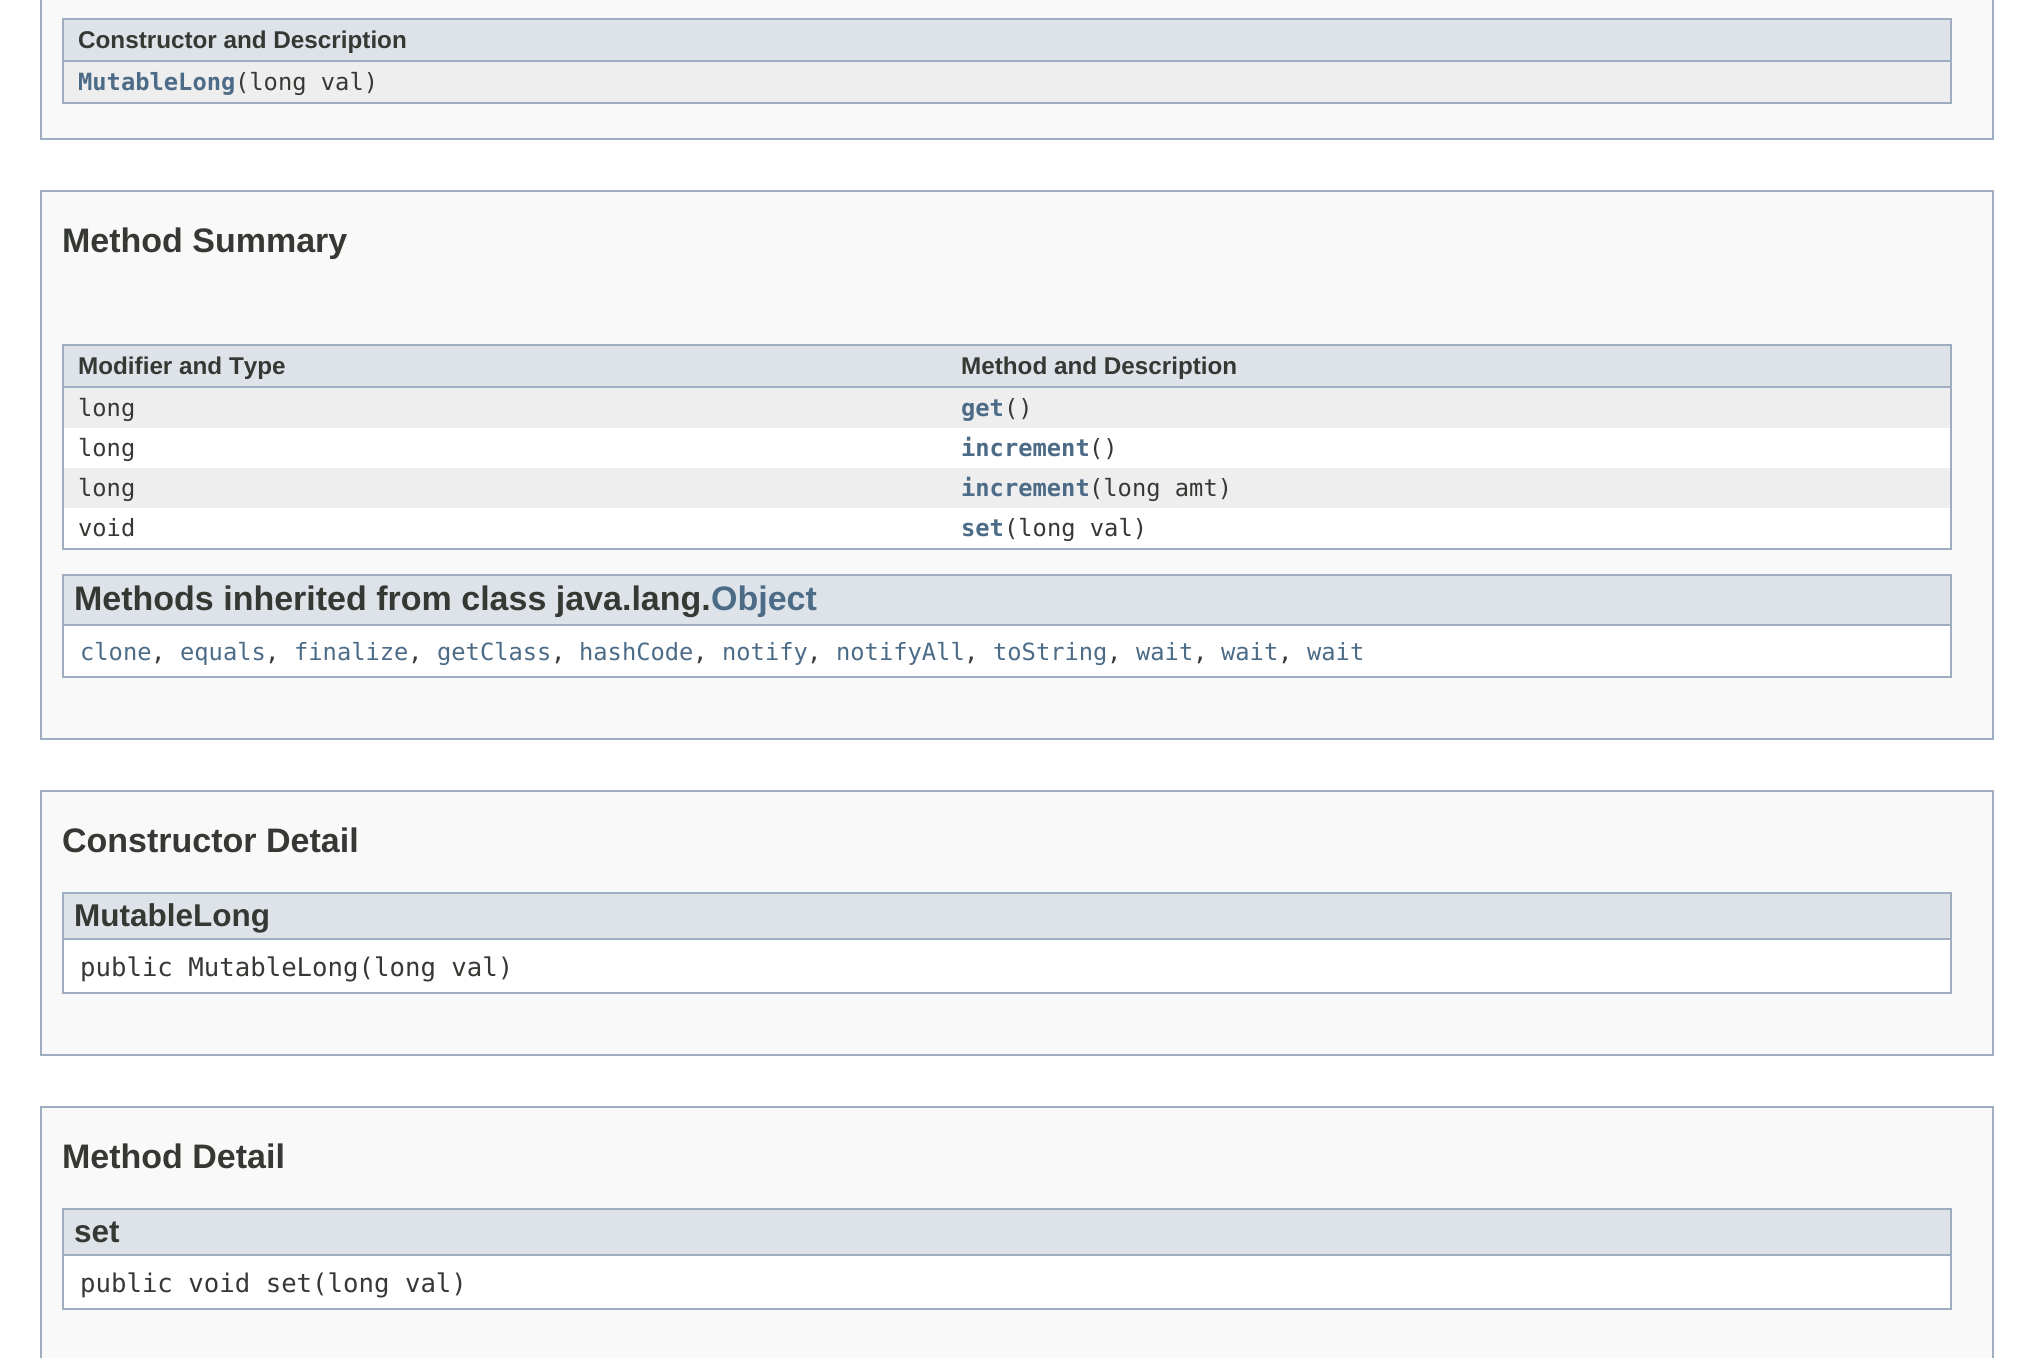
import math
import cairo


def draw(ctx):
	ctx.set_source_rgb(1, 1, 1)
	ctx.paint()
	ctx.set_source_rgb(0.976, 0.976, 0.976)
	ctx.rectangle(41, -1, 1952, 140)
	ctx.fill_preserve()
	ctx.set_source_rgb(0.62, 0.678, 0.753)
	ctx.stroke()
	ctx.rectangle(62, 102, 1890, 2)
	ctx.fill()
	ctx.set_source_rgb(0.871, 0.89, 0.914)
	ctx.rectangle(63, 19, 1888, 42)
	ctx.fill_preserve()
	ctx.set_source_rgb(0.62, 0.678, 0.753)
	ctx.stroke()
	ctx.select_font_face('Liberation Sans', cairo.FONT_SLANT_NORMAL, cairo.FONT_WEIGHT_BOLD)
	ctx.set_font_size(24.25)
	ctx.set_source_rgb(0.208, 0.22, 0.2)
	ctx.move_to(78, 48)
	ctx.show_text('Constructor and Description')
	ctx.set_source_rgb(0.933, 0.933, 0.937)
	ctx.rectangle(64, 62, 1886, 40)
	ctx.fill()
	ctx.set_source_rgb(0.62, 0.678, 0.753)
	ctx.rectangle(1950, 62, 2, 40)
	ctx.rectangle(62, 62, 2, 40)
	ctx.fill()
	ctx.select_font_face('DejaVu Sans Mono', cairo.FONT_SLANT_NORMAL, cairo.FONT_WEIGHT_BOLD)
	ctx.set_font_size(23.75)
	ctx.set_source_rgb(0.298, 0.42, 0.529)
	ctx.move_to(78, 90)
	ctx.show_text('MutableLong')
	ctx.select_font_face('DejaVu Sans Mono')
	ctx.set_source_rgb(0.208, 0.22, 0.2)
	ctx.move_to(235, 90)
	ctx.show_text('(long val)')
	ctx.set_source_rgb(0.976, 0.976, 0.976)
	ctx.rectangle(41, 191, 1952, 548)
	ctx.fill_preserve()
	ctx.set_source_rgb(0.62, 0.678, 0.753)
	ctx.stroke()
	ctx.select_font_face('Liberation Sans', cairo.FONT_SLANT_NORMAL, cairo.FONT_WEIGHT_BOLD)
	ctx.set_font_size(34)
	ctx.set_source_rgb(0.208, 0.22, 0.2)
	ctx.move_to(62, 252)
	ctx.show_text('Method Summary')
	ctx.set_source_rgb(0.62, 0.678, 0.753)
	ctx.rectangle(62, 548, 1890, 2)
	ctx.fill()
	ctx.set_source_rgb(0.871, 0.89, 0.914)
	ctx.rectangle(64, 346, 1886, 40)
	ctx.fill()
	ctx.set_source_rgb(0.62, 0.678, 0.753)
	ctx.rectangle(62, 344, 1890, 2)
	ctx.rectangle(62, 386, 886, 2)
	ctx.rectangle(62, 344, 2, 204)
	ctx.fill()
	ctx.set_font_size(24.25)
	ctx.set_source_rgb(0.208, 0.22, 0.2)
	ctx.move_to(78, 374)
	ctx.show_text('Modifier and Type')
	ctx.set_source_rgb(0.62, 0.678, 0.753)
	ctx.rectangle(1950, 344, 2, 204)
	ctx.fill()
	ctx.rectangle(948, 386, 1004, 2)
	ctx.fill()
	ctx.set_source_rgb(0.208, 0.22, 0.2)
	ctx.move_to(961, 374)
	ctx.show_text('Method and Description')
	ctx.set_source_rgb(0.933, 0.933, 0.937)
	ctx.rectangle(64, 388, 1886, 40)
	ctx.fill()
	ctx.select_font_face('DejaVu Sans Mono')
	ctx.set_font_size(23.75)
	ctx.set_source_rgb(0.208, 0.22, 0.2)
	ctx.move_to(78, 416)
	ctx.show_text('long')
	ctx.select_font_face('DejaVu Sans Mono', cairo.FONT_SLANT_NORMAL, cairo.FONT_WEIGHT_BOLD)
	ctx.set_source_rgb(0.298, 0.42, 0.529)
	ctx.move_to(961, 416)
	ctx.show_text('get')
	ctx.select_font_face('DejaVu Sans Mono')
	ctx.set_source_rgb(0.208, 0.22, 0.2)
	ctx.move_to(1004, 416)
	ctx.show_text('()')
	ctx.set_source_rgb(1, 1, 1)
	ctx.rectangle(64, 428, 1886, 40)
	ctx.fill()
	ctx.set_source_rgb(0.208, 0.22, 0.2)
	ctx.move_to(78, 456)
	ctx.show_text('long')
	ctx.select_font_face('DejaVu Sans Mono', cairo.FONT_SLANT_NORMAL, cairo.FONT_WEIGHT_BOLD)
	ctx.set_source_rgb(0.298, 0.42, 0.529)
	ctx.move_to(961, 456)
	ctx.show_text('increment')
	ctx.select_font_face('DejaVu Sans Mono')
	ctx.set_source_rgb(0.208, 0.22, 0.2)
	ctx.move_to(1089, 456)
	ctx.show_text('()')
	ctx.set_source_rgb(0.933, 0.933, 0.937)
	ctx.rectangle(64, 468, 1886, 40)
	ctx.fill()
	ctx.set_source_rgb(0.208, 0.22, 0.2)
	ctx.move_to(78, 496)
	ctx.show_text('long')
	ctx.select_font_face('DejaVu Sans Mono', cairo.FONT_SLANT_NORMAL, cairo.FONT_WEIGHT_BOLD)
	ctx.set_source_rgb(0.298, 0.42, 0.529)
	ctx.move_to(961, 496)
	ctx.show_text('increment')
	ctx.select_font_face('DejaVu Sans Mono')
	ctx.set_source_rgb(0.208, 0.22, 0.2)
	ctx.move_to(1089, 496)
	ctx.show_text('(long amt)')
	ctx.set_source_rgb(1, 1, 1)
	ctx.rectangle(64, 508, 1886, 40)
	ctx.fill()
	ctx.set_source_rgb(0.208, 0.22, 0.2)
	ctx.move_to(78, 536)
	ctx.show_text('void')
	ctx.select_font_face('DejaVu Sans Mono', cairo.FONT_SLANT_NORMAL, cairo.FONT_WEIGHT_BOLD)
	ctx.set_source_rgb(0.298, 0.42, 0.529)
	ctx.move_to(961, 536)
	ctx.show_text('set')
	ctx.select_font_face('DejaVu Sans Mono')
	ctx.set_source_rgb(0.208, 0.22, 0.2)
	ctx.move_to(1004, 536)
	ctx.show_text('(long val)')
	ctx.set_source_rgb(1, 1, 1)
	ctx.rectangle(64, 626, 1886, 50)
	ctx.fill()
	ctx.set_source_rgb(0.62, 0.678, 0.753)
	ctx.rectangle(1950, 574, 2, 104)
	ctx.rectangle(62, 676, 1890, 2)
	ctx.rectangle(62, 574, 2, 104)
	ctx.fill()
	ctx.set_source_rgb(0.871, 0.89, 0.914)
	ctx.rectangle(64, 576, 1886, 48)
	ctx.fill()
	ctx.set_source_rgb(0.62, 0.678, 0.753)
	ctx.rectangle(64, 574, 1886, 2)
	ctx.rectangle(64, 624, 1886, 2)
	ctx.fill()
	ctx.select_font_face('Liberation Sans', cairo.FONT_SLANT_NORMAL, cairo.FONT_WEIGHT_BOLD)
	ctx.set_font_size(34)
	ctx.set_source_rgb(0.208, 0.22, 0.2)
	ctx.move_to(74, 610)
	ctx.show_text('Methods inherited from class java.lang.')
	ctx.set_source_rgb(0.298, 0.42, 0.529)
	ctx.move_to(711, 610)
	ctx.show_text('Object')
	ctx.select_font_face('DejaVu Sans Mono')
	ctx.set_font_size(23.75)
	ctx.move_to(80, 660)
	ctx.show_text('clone')
	ctx.set_source_rgb(0.208, 0.22, 0.2)
	ctx.move_to(151, 660)
	ctx.show_text(',')
	ctx.set_source_rgb(0.298, 0.42, 0.529)
	ctx.move_to(180, 660)
	ctx.show_text('equals')
	ctx.set_source_rgb(0.208, 0.22, 0.2)
	ctx.move_to(265, 660)
	ctx.show_text(',')
	ctx.set_source_rgb(0.298, 0.42, 0.529)
	ctx.move_to(294, 660)
	ctx.show_text('finalize')
	ctx.set_source_rgb(0.208, 0.22, 0.2)
	ctx.move_to(408, 660)
	ctx.show_text(',')
	ctx.set_source_rgb(0.298, 0.42, 0.529)
	ctx.move_to(437, 660)
	ctx.show_text('getClass')
	ctx.set_source_rgb(0.208, 0.22, 0.2)
	ctx.move_to(551, 660)
	ctx.show_text(',')
	ctx.set_source_rgb(0.298, 0.42, 0.529)
	ctx.move_to(579, 660)
	ctx.show_text('hashCode')
	ctx.set_source_rgb(0.208, 0.22, 0.2)
	ctx.move_to(693, 660)
	ctx.show_text(',')
	ctx.set_source_rgb(0.298, 0.42, 0.529)
	ctx.move_to(722, 660)
	ctx.show_text('notify')
	ctx.set_source_rgb(0.208, 0.22, 0.2)
	ctx.move_to(807, 660)
	ctx.show_text(',')
	ctx.set_source_rgb(0.298, 0.42, 0.529)
	ctx.move_to(836, 660)
	ctx.show_text('notifyAll')
	ctx.set_source_rgb(0.208, 0.22, 0.2)
	ctx.move_to(964, 660)
	ctx.show_text(',')
	ctx.set_source_rgb(0.298, 0.42, 0.529)
	ctx.move_to(993, 660)
	ctx.show_text('toString')
	ctx.set_source_rgb(0.208, 0.22, 0.2)
	ctx.move_to(1107, 660)
	ctx.show_text(',')
	ctx.set_source_rgb(0.298, 0.42, 0.529)
	ctx.move_to(1136, 660)
	ctx.show_text('wait')
	ctx.set_source_rgb(0.208, 0.22, 0.2)
	ctx.move_to(1193, 660)
	ctx.show_text(',')
	ctx.set_source_rgb(0.298, 0.42, 0.529)
	ctx.move_to(1221, 660)
	ctx.show_text('wait')
	ctx.set_source_rgb(0.208, 0.22, 0.2)
	ctx.move_to(1278, 660)
	ctx.show_text(',')
	ctx.set_source_rgb(0.298, 0.42, 0.529)
	ctx.move_to(1307, 660)
	ctx.show_text('wait')
	ctx.set_source_rgb(0.976, 0.976, 0.976)
	ctx.rectangle(41, 791, 1952, 264)
	ctx.fill_preserve()
	ctx.set_source_rgb(0.62, 0.678, 0.753)
	ctx.stroke()
	ctx.select_font_face('Liberation Sans', cairo.FONT_SLANT_NORMAL, cairo.FONT_WEIGHT_BOLD)
	ctx.set_font_size(34)
	ctx.set_source_rgb(0.208, 0.22, 0.2)
	ctx.move_to(62, 852)
	ctx.show_text('Constructor Detail')
	ctx.set_source_rgb(1, 1, 1)
	ctx.rectangle(64, 940, 1886, 52)
	ctx.fill()
	ctx.set_source_rgb(0.62, 0.678, 0.753)
	ctx.rectangle(1950, 892, 2, 102)
	ctx.rectangle(62, 992, 1890, 2)
	ctx.rectangle(62, 892, 2, 102)
	ctx.fill()
	ctx.set_source_rgb(0.871, 0.89, 0.914)
	ctx.rectangle(64, 894, 1886, 44)
	ctx.fill()
	ctx.set_source_rgb(0.62, 0.678, 0.753)
	ctx.rectangle(64, 892, 1886, 2)
	ctx.rectangle(64, 938, 1886, 2)
	ctx.fill()
	ctx.set_font_size(31.5)
	ctx.set_source_rgb(0.208, 0.22, 0.2)
	ctx.move_to(74, 926)
	ctx.show_text('MutableLong')
	ctx.select_font_face('DejaVu Sans Mono')
	ctx.set_font_size(25.7)
	ctx.move_to(80, 976)
	ctx.show_text('public MutableLong(long val)')
	ctx.set_source_rgb(0.976, 0.976, 0.976)
	ctx.rectangle(41, 1107, 1952, 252)
	ctx.fill_preserve()
	ctx.set_source_rgb(0.62, 0.678, 0.753)
	ctx.stroke()
	ctx.select_font_face('Liberation Sans', cairo.FONT_SLANT_NORMAL, cairo.FONT_WEIGHT_BOLD)
	ctx.set_font_size(34)
	ctx.set_source_rgb(0.208, 0.22, 0.2)
	ctx.move_to(62, 1168)
	ctx.show_text('Method Detail')
	ctx.set_source_rgb(1, 1, 1)
	ctx.rectangle(64, 1256, 1886, 52)
	ctx.fill()
	ctx.set_source_rgb(0.62, 0.678, 0.753)
	ctx.rectangle(1950, 1208, 2, 102)
	ctx.rectangle(62, 1308, 1890, 2)
	ctx.rectangle(62, 1208, 2, 102)
	ctx.fill()
	ctx.set_source_rgb(0.871, 0.89, 0.914)
	ctx.rectangle(64, 1210, 1886, 44)
	ctx.fill()
	ctx.set_source_rgb(0.62, 0.678, 0.753)
	ctx.rectangle(64, 1208, 1886, 2)
	ctx.rectangle(64, 1254, 1886, 2)
	ctx.fill()
	ctx.set_font_size(31.5)
	ctx.set_source_rgb(0.208, 0.22, 0.2)
	ctx.move_to(74, 1242)
	ctx.show_text('set')
	ctx.select_font_face('DejaVu Sans Mono')
	ctx.set_font_size(25.7)
	ctx.move_to(80, 1292)
	ctx.show_text('public void set(long val)')


surface = cairo.ImageSurface(cairo.FORMAT_RGB24, 2034, 1358)
ctx = cairo.Context(surface)
options = cairo.FontOptions()
options.set_hint_metrics(cairo.HINT_METRICS_OFF)
options.set_hint_style(cairo.HINT_STYLE_NONE)
ctx.set_font_options(options)
ctx.set_miter_limit(4)
draw(ctx)
surface.write_to_png('image.png')
